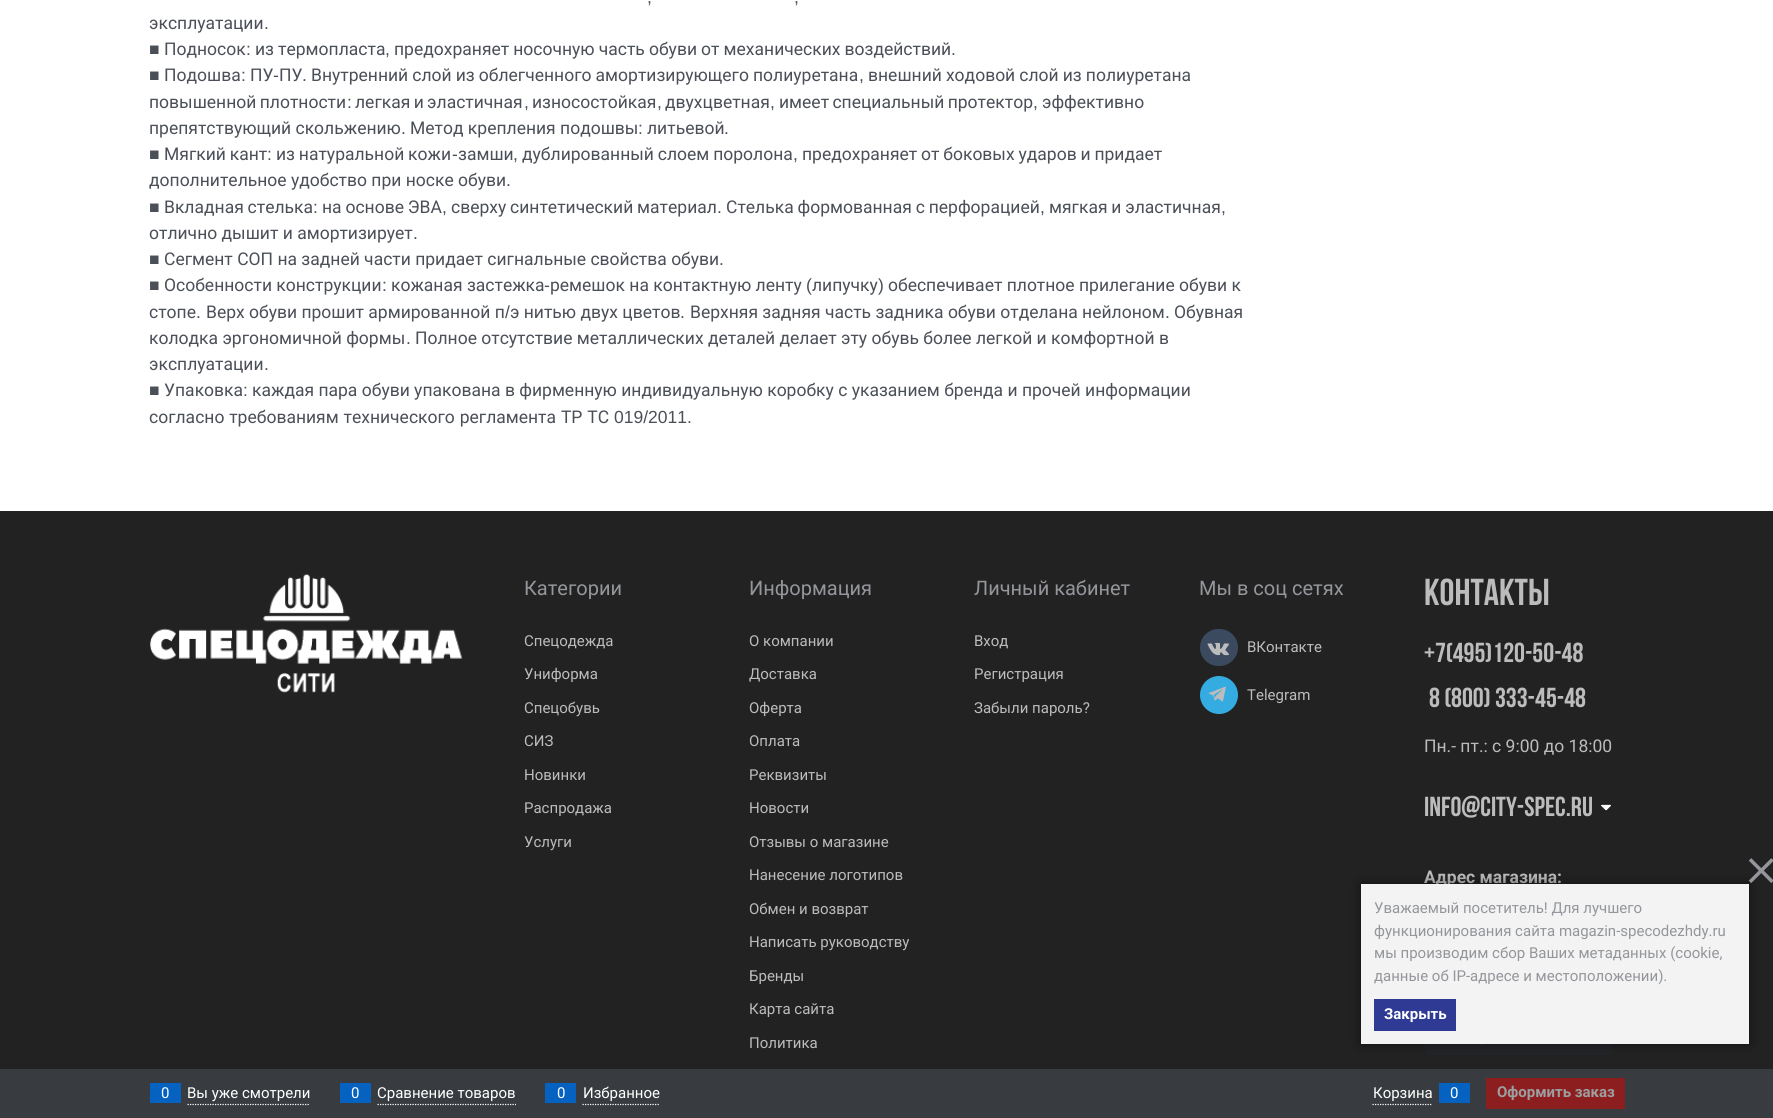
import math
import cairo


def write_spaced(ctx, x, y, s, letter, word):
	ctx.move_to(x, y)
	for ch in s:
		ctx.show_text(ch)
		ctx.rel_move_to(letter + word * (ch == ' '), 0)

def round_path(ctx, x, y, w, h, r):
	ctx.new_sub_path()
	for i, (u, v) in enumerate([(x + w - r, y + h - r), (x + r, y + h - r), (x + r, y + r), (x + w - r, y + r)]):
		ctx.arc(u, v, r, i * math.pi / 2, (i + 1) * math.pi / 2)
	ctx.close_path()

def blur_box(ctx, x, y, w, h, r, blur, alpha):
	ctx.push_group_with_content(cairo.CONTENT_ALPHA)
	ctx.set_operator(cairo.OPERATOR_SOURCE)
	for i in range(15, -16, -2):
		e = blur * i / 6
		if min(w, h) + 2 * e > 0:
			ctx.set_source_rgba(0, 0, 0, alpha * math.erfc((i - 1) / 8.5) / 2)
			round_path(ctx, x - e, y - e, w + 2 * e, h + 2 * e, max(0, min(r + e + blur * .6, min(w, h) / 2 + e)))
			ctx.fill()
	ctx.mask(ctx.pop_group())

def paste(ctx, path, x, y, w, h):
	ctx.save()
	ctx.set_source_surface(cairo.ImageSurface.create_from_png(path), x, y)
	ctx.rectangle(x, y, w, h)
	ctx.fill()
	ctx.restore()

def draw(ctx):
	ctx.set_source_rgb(1, 1, 1)
	ctx.paint()
	ctx.select_font_face('Liberation Sans')
	ctx.set_font_size(17.5)
	ctx.set_source_rgb(0.294, 0.31, 0.345)
	ctx.move_to(647, 3)
	ctx.show_text(',')
	ctx.move_to(794, 3)
	ctx.show_text(',')
	ctx.select_font_face('Roboto')
	ctx.move_to(149, 29)
	ctx.show_text('эксплуатации')
	ctx.select_font_face('Liberation Sans')
	ctx.move_to(264, 29)
	ctx.show_text('.')
	ctx.move_to(149, 55)
	ctx.show_text('■')
	ctx.select_font_face('Roboto')
	ctx.move_to(164, 55)
	ctx.show_text('Подносок')
	ctx.select_font_face('Liberation Sans')
	ctx.move_to(246, 55)
	ctx.show_text(':')
	ctx.select_font_face('Roboto')
	write_spaced(ctx, 255, 55, 'из термопласта', 0, -0.25)
	ctx.select_font_face('Liberation Sans')
	ctx.move_to(385, 55)
	ctx.show_text(',')
	ctx.select_font_face('Roboto')
	write_spaced(ctx, 394, 55, 'предохраняет носочную часть обуви от механических воздействий', 0, -0.25)
	ctx.select_font_face('Liberation Sans')
	ctx.move_to(951, 55)
	ctx.show_text('.')
	ctx.move_to(149, 81)
	ctx.show_text('■')
	ctx.select_font_face('Roboto')
	ctx.move_to(164, 81)
	ctx.show_text('Подошва')
	ctx.select_font_face('Liberation Sans')
	ctx.move_to(241, 81)
	ctx.show_text(':')
	ctx.select_font_face('Roboto')
	ctx.move_to(250, 81)
	ctx.show_text('ПУ')
	ctx.select_font_face('Liberation Sans')
	ctx.move_to(273, 81)
	ctx.show_text('-')
	ctx.select_font_face('Roboto')
	ctx.move_to(279, 81)
	ctx.show_text('ПУ')
	write_spaced(ctx, 311, 81, 'Внутренний слой из облегченного амортизирующего полиуретана', 0, -0.25)
	write_spaced(ctx, 868, 81, 'внешний ходовой слой из полиуретана', 0, -0.25)
	ctx.select_font_face('Liberation Sans')
	ctx.move_to(302, 81)
	ctx.show_text('.')
	ctx.move_to(859, 81)
	ctx.show_text(',')
	ctx.select_font_face('Roboto')
	write_spaced(ctx, 149, 108, 'повышенной плотности', 0, -1)
	ctx.select_font_face('Liberation Sans')
	ctx.move_to(347, 108)
	ctx.show_text(':')
	ctx.select_font_face('Roboto')
	write_spaced(ctx, 355, 108, 'легкая и эластичная', 0, -1)
	ctx.select_font_face('Liberation Sans')
	ctx.move_to(524, 108)
	ctx.show_text(',')
	ctx.select_font_face('Roboto')
	ctx.move_to(532, 108)
	ctx.show_text('износостойкая')
	ctx.select_font_face('Liberation Sans')
	ctx.move_to(657, 108)
	ctx.show_text(',')
	ctx.select_font_face('Roboto')
	ctx.move_to(665, 108)
	ctx.show_text('двухцветная')
	ctx.select_font_face('Liberation Sans')
	ctx.move_to(770, 108)
	ctx.show_text(',')
	ctx.select_font_face('Roboto')
	write_spaced(ctx, 779, 108, 'имеет специальный протектор', 0, -1)
	ctx.select_font_face('Liberation Sans')
	ctx.move_to(1033, 108)
	ctx.show_text(',')
	ctx.select_font_face('Roboto')
	ctx.move_to(1042, 108)
	ctx.show_text('эффективно')
	ctx.move_to(149, 134)
	ctx.show_text('препятствующий скольжению')
	ctx.select_font_face('Liberation Sans')
	ctx.move_to(401, 134)
	ctx.show_text('.')
	ctx.select_font_face('Roboto')
	ctx.move_to(410, 134)
	ctx.show_text('Метод крепления подошвы')
	ctx.select_font_face('Liberation Sans')
	ctx.move_to(638, 134)
	ctx.show_text(':')
	ctx.select_font_face('Roboto')
	ctx.move_to(647, 134)
	ctx.show_text('литьевой')
	ctx.select_font_face('Liberation Sans')
	ctx.move_to(724, 134)
	ctx.show_text('.')
	ctx.move_to(149, 160)
	ctx.show_text('■')
	ctx.select_font_face('Roboto')
	write_spaced(ctx, 164, 160, 'Мягкий кант', 0, -0.5)
	ctx.select_font_face('Liberation Sans')
	ctx.move_to(267, 160)
	ctx.show_text(':')
	ctx.select_font_face('Roboto')
	write_spaced(ctx, 276, 160, 'из натуральной кожи', 0, -0.5)
	ctx.select_font_face('Liberation Sans')
	ctx.move_to(452, 160)
	ctx.show_text('-')
	ctx.select_font_face('Roboto')
	ctx.move_to(458, 160)
	ctx.show_text('замши')
	write_spaced(ctx, 522, 160, 'дублированный слоем поролона', 0, -0.5)
	write_spaced(ctx, 802, 160, 'предохраняет от боковых ударов и придает', 0, -0.5)
	ctx.select_font_face('Liberation Sans')
	ctx.move_to(513, 160)
	ctx.show_text(',')
	ctx.move_to(793, 160)
	ctx.show_text(',')
	ctx.select_font_face('Roboto')
	ctx.move_to(149, 186)
	ctx.show_text('дополнительное удобство при носке обуви')
	ctx.select_font_face('Liberation Sans')
	ctx.move_to(506, 186)
	ctx.show_text('.')
	ctx.move_to(149, 213)
	ctx.show_text('■')
	ctx.select_font_face('Roboto')
	write_spaced(ctx, 164, 213, 'Вкладная стелька', 0, -0.5)
	ctx.select_font_face('Liberation Sans')
	ctx.move_to(313, 213)
	ctx.show_text(':')
	ctx.select_font_face('Roboto')
	write_spaced(ctx, 322, 213, 'на основе ЭВА', 0, -0.5)
	ctx.select_font_face('Liberation Sans')
	ctx.move_to(442, 213)
	ctx.show_text(',')
	ctx.select_font_face('Roboto')
	write_spaced(ctx, 451, 213, 'сверху синтетический материал', 0, -0.5)
	ctx.select_font_face('Liberation Sans')
	ctx.move_to(717, 213)
	ctx.show_text('.')
	ctx.select_font_face('Roboto')
	write_spaced(ctx, 726, 213, 'Стелька формованная с перфорацией', 0, -0.5)
	ctx.select_font_face('Liberation Sans')
	ctx.move_to(1040, 213)
	ctx.show_text(',')
	ctx.select_font_face('Roboto')
	write_spaced(ctx, 1049, 213, 'мягкая и эластичная', 0, -0.5)
	ctx.select_font_face('Liberation Sans')
	ctx.move_to(1221, 213)
	ctx.show_text(',')
	ctx.select_font_face('Roboto')
	ctx.move_to(149, 239)
	ctx.show_text('отлично дышит и амортизирует')
	ctx.select_font_face('Liberation Sans')
	ctx.move_to(413, 239)
	ctx.show_text('.')
	ctx.move_to(149, 265)
	ctx.show_text('■')
	ctx.select_font_face('Roboto')
	ctx.move_to(164, 265)
	ctx.show_text('Сегмент СОП на задней части придает сигнальные свойства обуви')
	ctx.select_font_face('Liberation Sans')
	ctx.move_to(719, 265)
	ctx.show_text('.')
	ctx.move_to(149, 291)
	ctx.show_text('■')
	ctx.select_font_face('Roboto')
	ctx.move_to(164, 291)
	ctx.show_text('Особенности конструкции')
	ctx.select_font_face('Liberation Sans')
	ctx.move_to(382, 291)
	ctx.show_text(':')
	ctx.select_font_face('Roboto')
	ctx.move_to(391, 291)
	ctx.show_text('кожаная застежка')
	ctx.select_font_face('Liberation Sans')
	ctx.move_to(544, 291)
	ctx.show_text('-')
	ctx.select_font_face('Roboto')
	ctx.move_to(550, 291)
	ctx.show_text('ремешок на контактную ленту')
	ctx.select_font_face('Liberation Sans')
	ctx.move_to(806, 291)
	ctx.show_text('(')
	ctx.select_font_face('Roboto')
	ctx.move_to(812, 291)
	ctx.show_text('липучку')
	ctx.select_font_face('Liberation Sans')
	ctx.move_to(878, 291)
	ctx.show_text(')')
	ctx.select_font_face('Roboto')
	ctx.move_to(888, 291)
	ctx.show_text('обеспечивает плотное прилегание обуви к')
	ctx.move_to(149, 318)
	ctx.show_text('стопе')
	ctx.select_font_face('Liberation Sans')
	ctx.move_to(196, 318)
	ctx.show_text('.')
	ctx.select_font_face('Roboto')
	ctx.move_to(206, 318)
	ctx.show_text('Верх обуви прошит армированной п')
	ctx.select_font_face('Liberation Sans')
	ctx.move_to(505, 318)
	ctx.show_text('/')
	ctx.select_font_face('Roboto')
	ctx.move_to(510, 318)
	ctx.show_text('э нитью двух цветов')
	ctx.select_font_face('Liberation Sans')
	ctx.move_to(680, 318)
	ctx.show_text('.')
	ctx.select_font_face('Roboto')
	ctx.move_to(690, 318)
	ctx.show_text('Верхняя задняя часть задника обуви отделана нейлоном')
	ctx.select_font_face('Liberation Sans')
	ctx.move_to(1165, 318)
	ctx.show_text('.')
	ctx.select_font_face('Roboto')
	ctx.move_to(1174, 318)
	ctx.show_text('Обувная')
	ctx.move_to(149, 344)
	ctx.show_text('колодка эргономичной формы')
	ctx.select_font_face('Liberation Sans')
	ctx.move_to(406, 344)
	ctx.show_text('.')
	ctx.select_font_face('Roboto')
	ctx.move_to(415, 344)
	ctx.show_text('Полное отсутствие металлических деталей делает эту обувь более легкой и комфортной в')
	ctx.move_to(149, 370)
	ctx.show_text('эксплуатации')
	ctx.select_font_face('Liberation Sans')
	ctx.move_to(264, 370)
	ctx.show_text('.')
	ctx.move_to(149, 396)
	ctx.show_text('■')
	ctx.select_font_face('Roboto')
	ctx.move_to(164, 396)
	ctx.show_text('Упаковка')
	ctx.select_font_face('Liberation Sans')
	ctx.move_to(243, 396)
	ctx.show_text(':')
	ctx.select_font_face('Roboto')
	ctx.move_to(252, 396)
	ctx.show_text('каждая пара обуви упакована в фирменную индивидуальную коробку с указанием бренда и прочей информации')
	write_spaced(ctx, 149, 423, 'согласно требованиям технического регламента ТР ТС', 0, 0.5)
	ctx.select_font_face('Liberation Sans')
	ctx.move_to(614, 423)
	ctx.show_text('019/2011.')
	ctx.set_source_rgb(0.133, 0.133, 0.133)
	ctx.rectangle(0, 511, 1773, 558)
	ctx.fill()
	paste(ctx, 'media/1.png', 150, 573, 313, 120)
	ctx.select_font_face('Roboto')
	ctx.set_font_size(20)
	ctx.set_source_rgb(0.58, 0.588, 0.608)
	ctx.move_to(524, 595)
	ctx.show_text('Категории')
	ctx.set_font_size(15)
	ctx.set_source_rgb(0.737, 0.737, 0.737)
	for x, y, s in [
		(524, 646, 'Спецодежда'),
		(524, 679, 'Униформа'),
		(524, 713, 'Спецобувь'),
		(524, 746, 'СИЗ'),
		(524, 780, 'Новинки'),
		(524, 813, 'Распродажа'),
		(524, 847, 'Услуги'),
	]:
		ctx.move_to(x, y)
		ctx.show_text(s)
	ctx.set_font_size(20)
	ctx.set_source_rgb(0.58, 0.588, 0.608)
	ctx.move_to(749, 595)
	ctx.show_text('Информация')
	ctx.set_font_size(15)
	ctx.set_source_rgb(0.737, 0.737, 0.737)
	for x, y, s in [
		(749, 646, 'О компании'),
		(749, 679, 'Доставка'),
		(749, 713, 'Оферта'),
		(749, 746, 'Оплата'),
		(749, 780, 'Реквизиты'),
		(749, 813, 'Новости'),
		(749, 847, 'Отзывы о магазине'),
		(749, 880, 'Нанесение логотипов'),
		(749, 914, 'Обмен и возврат'),
		(749, 947, 'Написать руководству'),
		(749, 981, 'Бренды'),
		(749, 1014, 'Карта сайта'),
		(749, 1048, 'Политика'),
	]:
		ctx.move_to(x, y)
		ctx.show_text(s)
	ctx.set_font_size(20)
	ctx.set_source_rgb(0.58, 0.588, 0.608)
	ctx.move_to(974, 595)
	ctx.show_text('Личный кабинет')
	ctx.set_font_size(15)
	ctx.set_source_rgb(0.737, 0.737, 0.737)
	for x, y, s in [
		(974, 646, 'Вход'),
		(974, 679, 'Регистрация'),
		(974, 713, 'Забыли пароль?'),
	]:
		ctx.move_to(x, y)
		ctx.show_text(s)
	ctx.set_font_size(20)
	ctx.set_source_rgb(0.58, 0.588, 0.608)
	ctx.move_to(1199, 595)
	ctx.show_text('Мы в соц сетях')
	ctx.set_source_rgb(0.231, 0.29, 0.373)
	round_path(ctx, 1200, 629, 38, 37, 18.5)
	ctx.fill()
	paste(ctx, 'media/2.png', 1207, 642, 22, 14)
	ctx.set_font_size(15)
	ctx.set_source_rgb(0.737, 0.737, 0.737)
	ctx.move_to(1247, 652)
	ctx.show_text('ВКонтакте')
	ctx.set_source_rgb(0.208, 0.675, 0.882)
	ctx.new_path()
	ctx.arc(1219, 695, 19, 0, 2 * math.pi)
	ctx.fill()
	paste(ctx, 'media/3.png', 1208, 686, 18, 16)
	ctx.set_source_rgb(0.737, 0.737, 0.737)
	ctx.move_to(1247, 700)
	ctx.show_text('Telegram')
	ctx.select_font_face('Bebas Neue', cairo.FONT_SLANT_NORMAL, cairo.FONT_WEIGHT_BOLD)
	ctx.set_font_size(37.5)
	ctx.move_to(1424, 605)
	ctx.show_text('КОНТАКТЫ')
	ctx.set_font_size(27.5)
	ctx.move_to(1424, 662)
	ctx.show_text('+7(495)120-50-48')
	ctx.move_to(1429, 707)
	ctx.show_text('8 (800) 333-45-48')
	ctx.select_font_face('Roboto')
	ctx.set_font_size(17.5)
	ctx.move_to(1424, 752)
	ctx.show_text('Пн.- пт.: с 9:00 до 18:00')
	ctx.select_font_face('Bebas Neue', cairo.FONT_SLANT_NORMAL, cairo.FONT_WEIGHT_BOLD)
	ctx.set_font_size(27.5)
	ctx.move_to(1424, 816)
	ctx.show_text('INFO@CITY-SPEC.RU')
	paste(ctx, 'media/4.png', 1601, 804, 10, 7)
	ctx.select_font_face('Roboto', cairo.FONT_SLANT_NORMAL, cairo.FONT_WEIGHT_BOLD)
	ctx.set_font_size(17.5)
	ctx.move_to(1424, 883)
	ctx.show_text('Адрес магазина:')
	paste(ctx, 'media/5.png', 1425, 1044, 187, 11)
	ctx.set_source_rgb(0.22, 0.235, 0.251)
	ctx.rectangle(0, 1069, 1773, 49)
	ctx.fill()
	ctx.new_path()
	ctx.move_to(187.5, 1104.5)
	ctx.line_to(310, 1104.5)
	ctx.set_source_rgb(1, 1, 1)
	ctx.set_line_width(1.2)
	ctx.set_dash([1.25, 1.25])
	ctx.stroke()
	ctx.set_source_rgb(0.024, 0.384, 0.757)
	ctx.rectangle(150, 1083, 31, 20)
	ctx.fill()
	ctx.select_font_face('Roboto')
	ctx.set_font_size(15)
	ctx.set_source_rgb(1, 1, 1)
	ctx.move_to(161, 1098)
	ctx.show_text('0')
	ctx.move_to(187, 1098)
	ctx.show_text('Вы уже смотрели')
	ctx.new_path()
	ctx.move_to(377.5, 1104.5)
	ctx.line_to(516, 1104.5)
	ctx.stroke()
	ctx.set_source_rgb(0.024, 0.384, 0.757)
	ctx.rectangle(340, 1083, 31, 20)
	ctx.fill()
	ctx.set_source_rgb(1, 1, 1)
	ctx.move_to(351, 1098)
	ctx.show_text('0')
	ctx.move_to(377, 1098)
	ctx.show_text('Сравнение товаров')
	ctx.new_path()
	ctx.move_to(582.5, 1104.5)
	ctx.line_to(660, 1104.5)
	ctx.stroke()
	ctx.set_source_rgb(0.024, 0.384, 0.757)
	ctx.rectangle(545, 1083, 31, 20)
	ctx.fill()
	ctx.set_source_rgb(1, 1, 1)
	ctx.move_to(557, 1098)
	ctx.show_text('0')
	ctx.move_to(583, 1098)
	ctx.show_text('Избранное')
	ctx.new_path()
	ctx.move_to(1372.5, 1104.5)
	ctx.line_to(1432.5, 1104.5)
	ctx.stroke()
	ctx.move_to(1373, 1098)
	ctx.show_text('Корзина')
	ctx.set_source_rgb(0.024, 0.384, 0.757)
	ctx.rectangle(1439, 1083, 31, 20)
	ctx.fill()
	ctx.set_source_rgb(1, 1, 1)
	ctx.move_to(1450, 1098)
	ctx.show_text('0')
	ctx.set_source_rgb(0.553, 0.118, 0.125)
	ctx.rectangle(1486, 1078, 139, 31)
	ctx.fill()
	ctx.select_font_face('Roboto', cairo.FONT_SLANT_NORMAL, cairo.FONT_WEIGHT_BOLD)
	ctx.set_source_rgb(0.612, 0.62, 0.627)
	ctx.move_to(1497, 1097)
	ctx.show_text('Оформить заказ')
	ctx.set_source_rgb(0, 0, 0)
	blur_box(ctx, 1361, 884, 388, 160, 0, 6, 0.5)
	ctx.set_source_rgb(0.953, 0.953, 0.953)
	ctx.rectangle(1361, 884, 388, 160)
	ctx.fill()
	paste(ctx, 'media/6.png', 1748, 858, 25, 25)
	ctx.select_font_face('Roboto')
	ctx.set_source_rgb(0.58, 0.588, 0.608)
	for x, y, s in [
		(1374, 913, 'Уважаемый посетитель! Для лучшего'),
		(1374, 936, 'функционирования сайта magazin-specodezhdy.ru'),
		(1374, 958, 'мы производим сбор Ваших метаданных (cookie,'),
		(1374, 981, 'данные об IP-адресе и местоположении).'),
	]:
		ctx.move_to(x, y)
		ctx.show_text(s)
	ctx.set_source_rgb(0.18, 0.227, 0.58)
	ctx.rectangle(1374, 999, 82, 32)
	ctx.fill()
	ctx.select_font_face('Roboto', cairo.FONT_SLANT_NORMAL, cairo.FONT_WEIGHT_BOLD)
	ctx.set_source_rgb(1, 1, 1)
	ctx.move_to(1384, 1019)
	ctx.show_text('Закрыть')


surface = cairo.ImageSurface(cairo.FORMAT_RGB24, 1773, 1118)
ctx = cairo.Context(surface)
options = cairo.FontOptions()
options.set_hint_metrics(cairo.HINT_METRICS_OFF)
options.set_hint_style(cairo.HINT_STYLE_NONE)
ctx.set_font_options(options)
ctx.set_miter_limit(4)
draw(ctx)
surface.write_to_png('image.png')
